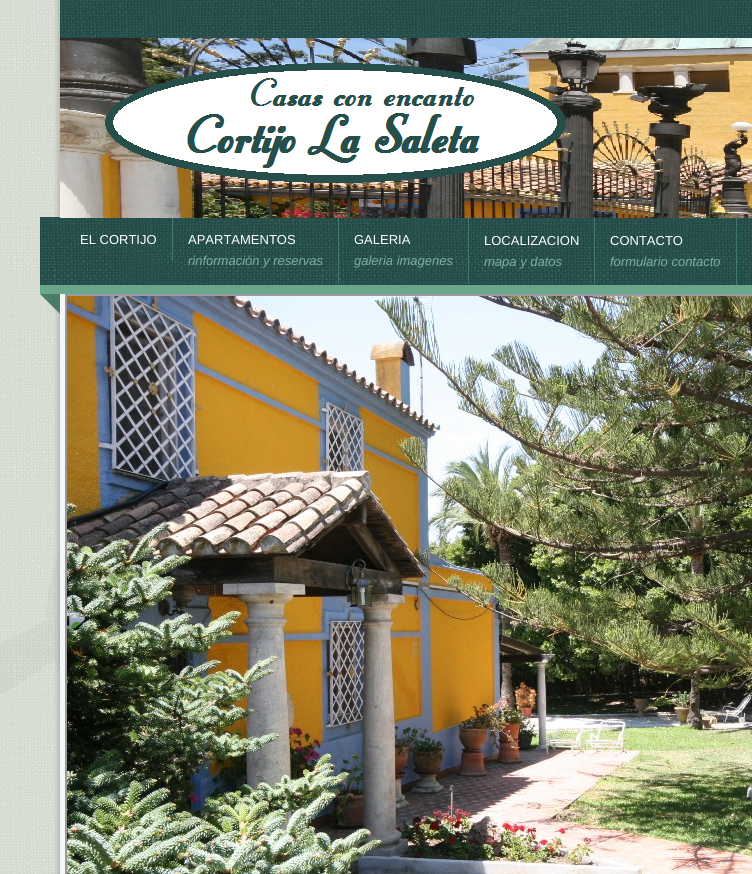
import math
import cairo


def paste(ctx, path, x, y, w, h):
	ctx.save()
	ctx.set_source_surface(cairo.ImageSurface.create_from_png(path), x, y)
	ctx.rectangle(x, y, w, h)
	ctx.fill()
	ctx.restore()

def draw(ctx):
	ctx.set_source_rgb(0.953, 0.973, 0.933)
	ctx.paint()
	paste(ctx, 'media/1.png', 0, 0, 60, 874)
	paste(ctx, 'media/2.png', 0, 551, 60, 143)
	paste(ctx, 'media/3.png', 54, 0, 6, 874)
	ctx.set_source_rgb(0.004, 0.251, 0.227)
	ctx.rectangle(60, 0, 692, 38)
	ctx.fill()
	paste(ctx, 'media/4.png', 60, 0, 692, 38)
	ctx.rectangle(514, 10, 53, 28)
	ctx.fill()
	paste(ctx, 'media/5.png', 514, 10, 53, 28)
	ctx.rectangle(40, 217, 712, 68)
	ctx.fill()
	paste(ctx, 'media/7.png', 40, 217, 712, 68)
	ctx.set_source_rgb(0.255, 0.471, 0.451)
	ctx.rectangle(172, 217, 1, 45)
	ctx.rectangle(338, 217, 1, 67)
	ctx.rectangle(468, 217, 1, 67)
	ctx.rectangle(594, 217, 1, 68)
	ctx.rectangle(736, 217, 1, 68)
	ctx.fill()
	paste(ctx, 'media/6.png', 60, 38, 692, 180)
	ctx.set_source_rgb(0.416, 0.651, 0.541)
	ctx.rectangle(40, 285, 712, 9)
	ctx.fill()
	ctx.select_font_face('Liberation Sans')
	ctx.set_font_size(13)
	ctx.set_source_rgb(1, 1, 1)
	ctx.move_to(80, 244)
	ctx.show_text('EL CORTIJO')
	ctx.move_to(188, 244)
	ctx.show_text('APARTAMENTOS')
	ctx.select_font_face('Liberation Sans', cairo.FONT_SLANT_ITALIC)
	ctx.set_source_rgb(0.498, 0.671, 0.655)
	ctx.move_to(188, 265)
	ctx.show_text('rinformación y reservas')
	ctx.select_font_face('Liberation Sans')
	ctx.set_source_rgb(1, 1, 1)
	ctx.move_to(354, 244)
	ctx.show_text('GALERIA')
	ctx.select_font_face('Liberation Sans', cairo.FONT_SLANT_ITALIC)
	ctx.set_source_rgb(0.498, 0.671, 0.655)
	ctx.move_to(354, 265)
	ctx.show_text('galeria imagenes')
	ctx.select_font_face('Liberation Sans')
	ctx.set_source_rgb(1, 1, 1)
	ctx.move_to(484, 245)
	ctx.show_text('LOCALIZACION')
	ctx.select_font_face('Liberation Sans', cairo.FONT_SLANT_ITALIC)
	ctx.set_source_rgb(0.498, 0.671, 0.655)
	ctx.move_to(484, 266)
	ctx.show_text('mapa y datos')
	ctx.select_font_face('Liberation Sans')
	ctx.set_source_rgb(1, 1, 1)
	ctx.move_to(610, 245)
	ctx.show_text('CONTACTO')
	ctx.select_font_face('Liberation Sans', cairo.FONT_SLANT_ITALIC)
	ctx.set_source_rgb(0.498, 0.671, 0.655)
	ctx.move_to(610, 266)
	ctx.show_text('formulario contacto')
	ctx.set_source_rgb(0.29, 0.49, 0.396)
	ctx.new_path()
	ctx.move_to(40, 294)
	ctx.line_to(60, 294)
	ctx.line_to(60, 314)
	ctx.close_path()
	ctx.fill()
	ctx.set_source_rgb(0.961, 0.961, 0.961)
	ctx.rectangle(60, 294, 5, 580)
	ctx.fill()
	paste(ctx, 'media/8.png', 65, 294, 687, 580)


surface = cairo.ImageSurface(cairo.FORMAT_RGB24, 752, 874)
ctx = cairo.Context(surface)
options = cairo.FontOptions()
options.set_hint_metrics(cairo.HINT_METRICS_OFF)
options.set_hint_style(cairo.HINT_STYLE_NONE)
ctx.set_font_options(options)
ctx.set_miter_limit(4)
draw(ctx)
surface.write_to_png('image.png')
